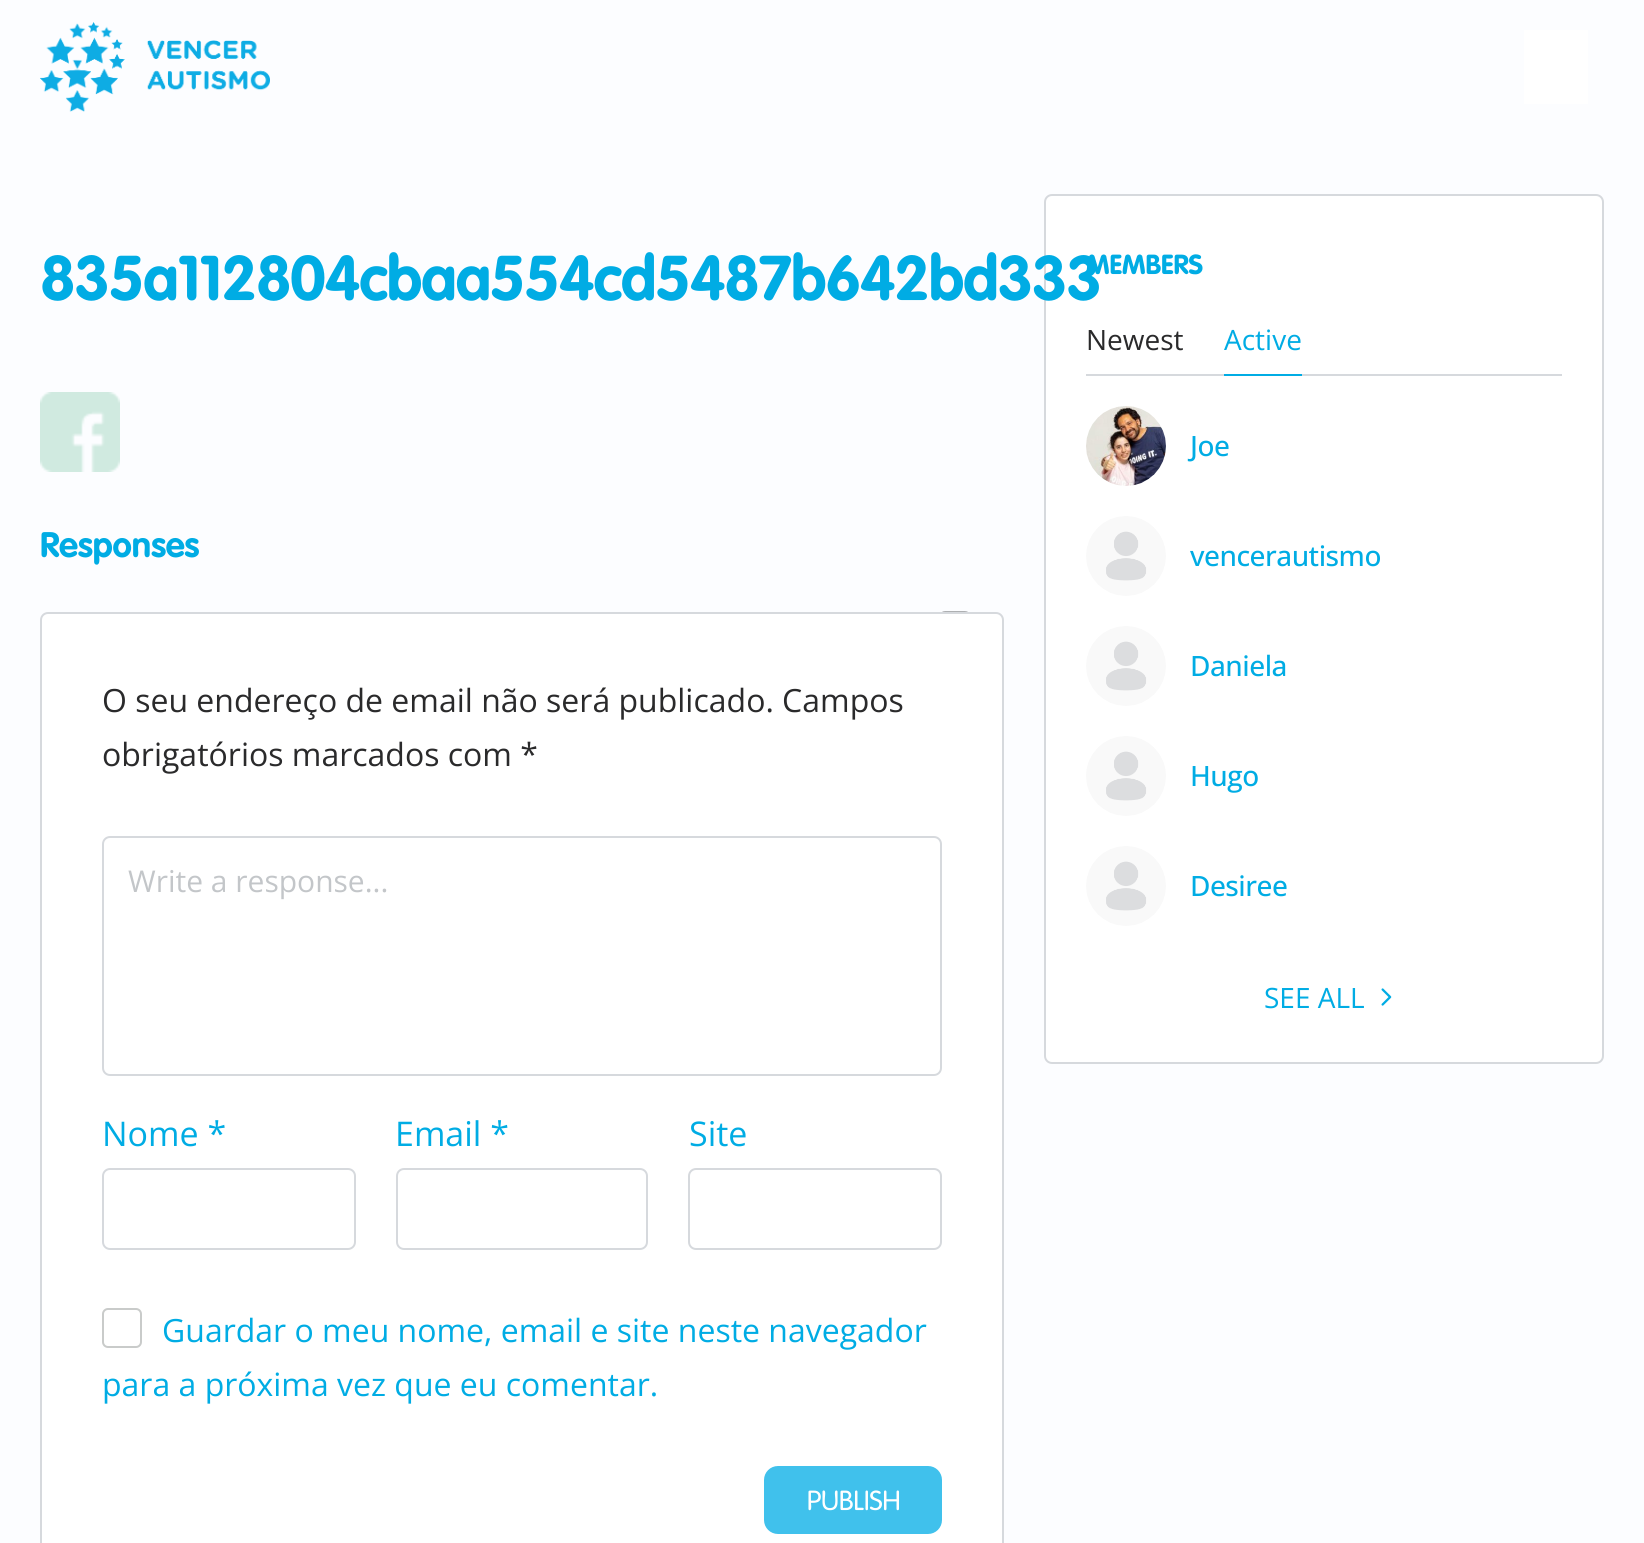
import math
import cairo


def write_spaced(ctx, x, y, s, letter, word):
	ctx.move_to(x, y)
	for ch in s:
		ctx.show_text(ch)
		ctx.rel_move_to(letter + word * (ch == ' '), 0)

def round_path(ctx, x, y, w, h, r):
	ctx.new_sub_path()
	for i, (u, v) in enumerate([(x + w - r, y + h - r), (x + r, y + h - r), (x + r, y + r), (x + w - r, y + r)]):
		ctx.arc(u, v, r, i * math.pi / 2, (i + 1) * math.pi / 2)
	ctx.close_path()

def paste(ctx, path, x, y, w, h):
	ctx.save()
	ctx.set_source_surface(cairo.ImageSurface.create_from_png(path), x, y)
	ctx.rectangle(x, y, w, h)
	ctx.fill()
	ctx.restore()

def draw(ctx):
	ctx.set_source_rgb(0.988, 0.992, 1)
	ctx.paint()
	paste(ctx, 'media/1.png', 40, 22, 230, 90)
	ctx.set_source_rgb(1, 1, 1)
	ctx.rectangle(1524, 30, 64, 74)
	ctx.fill()
	round_path(ctx, 1045, 195, 558, 868, 7)
	ctx.fill_preserve()
	ctx.set_source_rgb(0.839, 0.851, 0.867)
	ctx.stroke()
	ctx.select_font_face('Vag', cairo.FONT_SLANT_NORMAL, cairo.FONT_WEIGHT_BOLD)
	ctx.set_font_size(28)
	ctx.set_source_rgb(0, 0.675, 0.894)
	ctx.move_to(1086, 274)
	ctx.show_text('MEMBERS')
	ctx.set_font_size(64)
	write_spaced(ctx, 40, 300, '835a112804cbaa554cd5487b642bd333', -0.95, 0)
	paste(ctx, 'media/2.png', 40, 392, 80, 80)
	ctx.set_font_size(36)
	ctx.move_to(40, 557)
	ctx.show_text('Responses')
	ctx.set_source_rgb(1, 1, 1)
	round_path(ctx, 41, 613, 962, 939, 7)
	ctx.fill_preserve()
	ctx.set_source_rgb(0.839, 0.851, 0.867)
	ctx.stroke()
	ctx.select_font_face('Open Sans')
	ctx.set_font_size(32)
	ctx.set_source_rgb(0.165, 0.165, 0.169)
	ctx.move_to(102, 712)
	ctx.show_text('O seu endereço de email não será publicado. Campos')
	ctx.move_to(102, 766)
	ctx.show_text('obrigatórios marcados com *')
	round_path(ctx, 103, 837, 838, 238, 7)
	ctx.set_source_rgb(0.839, 0.851, 0.867)
	ctx.stroke()
	ctx.set_font_size(30)
	ctx.set_source_rgb(0.765, 0.776, 0.788)
	ctx.move_to(128, 892)
	ctx.show_text('Write a response...')
	ctx.set_font_size(34)
	ctx.set_source_rgb(0, 0.675, 0.894)
	ctx.move_to(102, 1146)
	ctx.show_text('Nome *')
	round_path(ctx, 103, 1169, 252, 80, 7)
	ctx.set_source_rgb(0.839, 0.851, 0.867)
	ctx.stroke()
	ctx.set_source_rgb(0, 0.675, 0.894)
	ctx.move_to(395, 1146)
	ctx.show_text('Email *')
	round_path(ctx, 397, 1169, 250, 80, 7)
	ctx.set_source_rgb(0.839, 0.851, 0.867)
	ctx.stroke()
	ctx.set_source_rgb(0, 0.675, 0.894)
	ctx.move_to(689, 1146)
	ctx.show_text('Site')
	round_path(ctx, 689, 1169, 252, 80, 7)
	ctx.set_source_rgb(0.839, 0.851, 0.867)
	ctx.stroke()
	round_path(ctx, 103, 1309, 38, 38, 5)
	ctx.set_source_rgb(0.788, 0.796, 0.792)
	ctx.stroke()
	ctx.set_font_size(32)
	ctx.set_source_rgb(0, 0.675, 0.894)
	ctx.move_to(162, 1342)
	ctx.show_text('Guardar o meu nome, email e site neste navegador')
	ctx.move_to(102, 1396)
	ctx.show_text('para a próxima vez que eu comentar.')
	ctx.set_source_rgb(0.251, 0.757, 0.922)
	round_path(ctx, 765, 1467, 176, 66, 13)
	ctx.fill_preserve()
	ctx.stroke()
	ctx.select_font_face('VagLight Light')
	ctx.set_font_size(28)
	ctx.set_source_rgb(1, 1, 1)
	ctx.move_to(807, 1510)
	ctx.show_text('PUBLISH')
	paste(ctx, 'media/3.png', 942, 611, 26, 1)
	ctx.set_source_rgb(0.839, 0.851, 0.867)
	ctx.rectangle(1086, 374, 476, 2)
	ctx.fill()
	ctx.select_font_face('Open Sans')
	ctx.set_source_rgb(0.165, 0.165, 0.169)
	ctx.move_to(1086, 350)
	ctx.show_text('Newest')
	ctx.set_source_rgb(0, 0.675, 0.894)
	ctx.rectangle(1224, 374, 78, 2)
	ctx.fill()
	ctx.move_to(1224, 350)
	ctx.show_text('Active')
	paste(ctx, 'media/4.png', 1086, 406, 80, 80)
	ctx.select_font_face('Open Sans Medium')
	write_spaced(ctx, 1190, 456, 'Joe', -0.5, 0)
	paste(ctx, 'media/5.png', 1086, 516, 80, 80)
	write_spaced(ctx, 1190, 566, 'vencerautismo', -0.5, 0)
	paste(ctx, 'media/6.png', 1086, 626, 80, 80)
	write_spaced(ctx, 1190, 676, 'Daniela', -0.5, 0)
	paste(ctx, 'media/7.png', 1086, 736, 80, 80)
	write_spaced(ctx, 1190, 786, 'Hugo', -0.5, 0)
	paste(ctx, 'media/8.png', 1086, 846, 80, 80)
	write_spaced(ctx, 1190, 896, 'Desiree', -0.5, 0)
	ctx.select_font_face('Open Sans')
	ctx.move_to(1264, 1008)
	ctx.show_text('SEE ALL')
	paste(ctx, 'media/9.png', 1381, 988, 11, 18)


surface = cairo.ImageSurface(cairo.FORMAT_RGB24, 1644, 1543)
ctx = cairo.Context(surface)
options = cairo.FontOptions()
options.set_hint_metrics(cairo.HINT_METRICS_OFF)
options.set_hint_style(cairo.HINT_STYLE_NONE)
ctx.set_font_options(options)
ctx.set_miter_limit(4)
draw(ctx)
surface.write_to_png('image.png')
